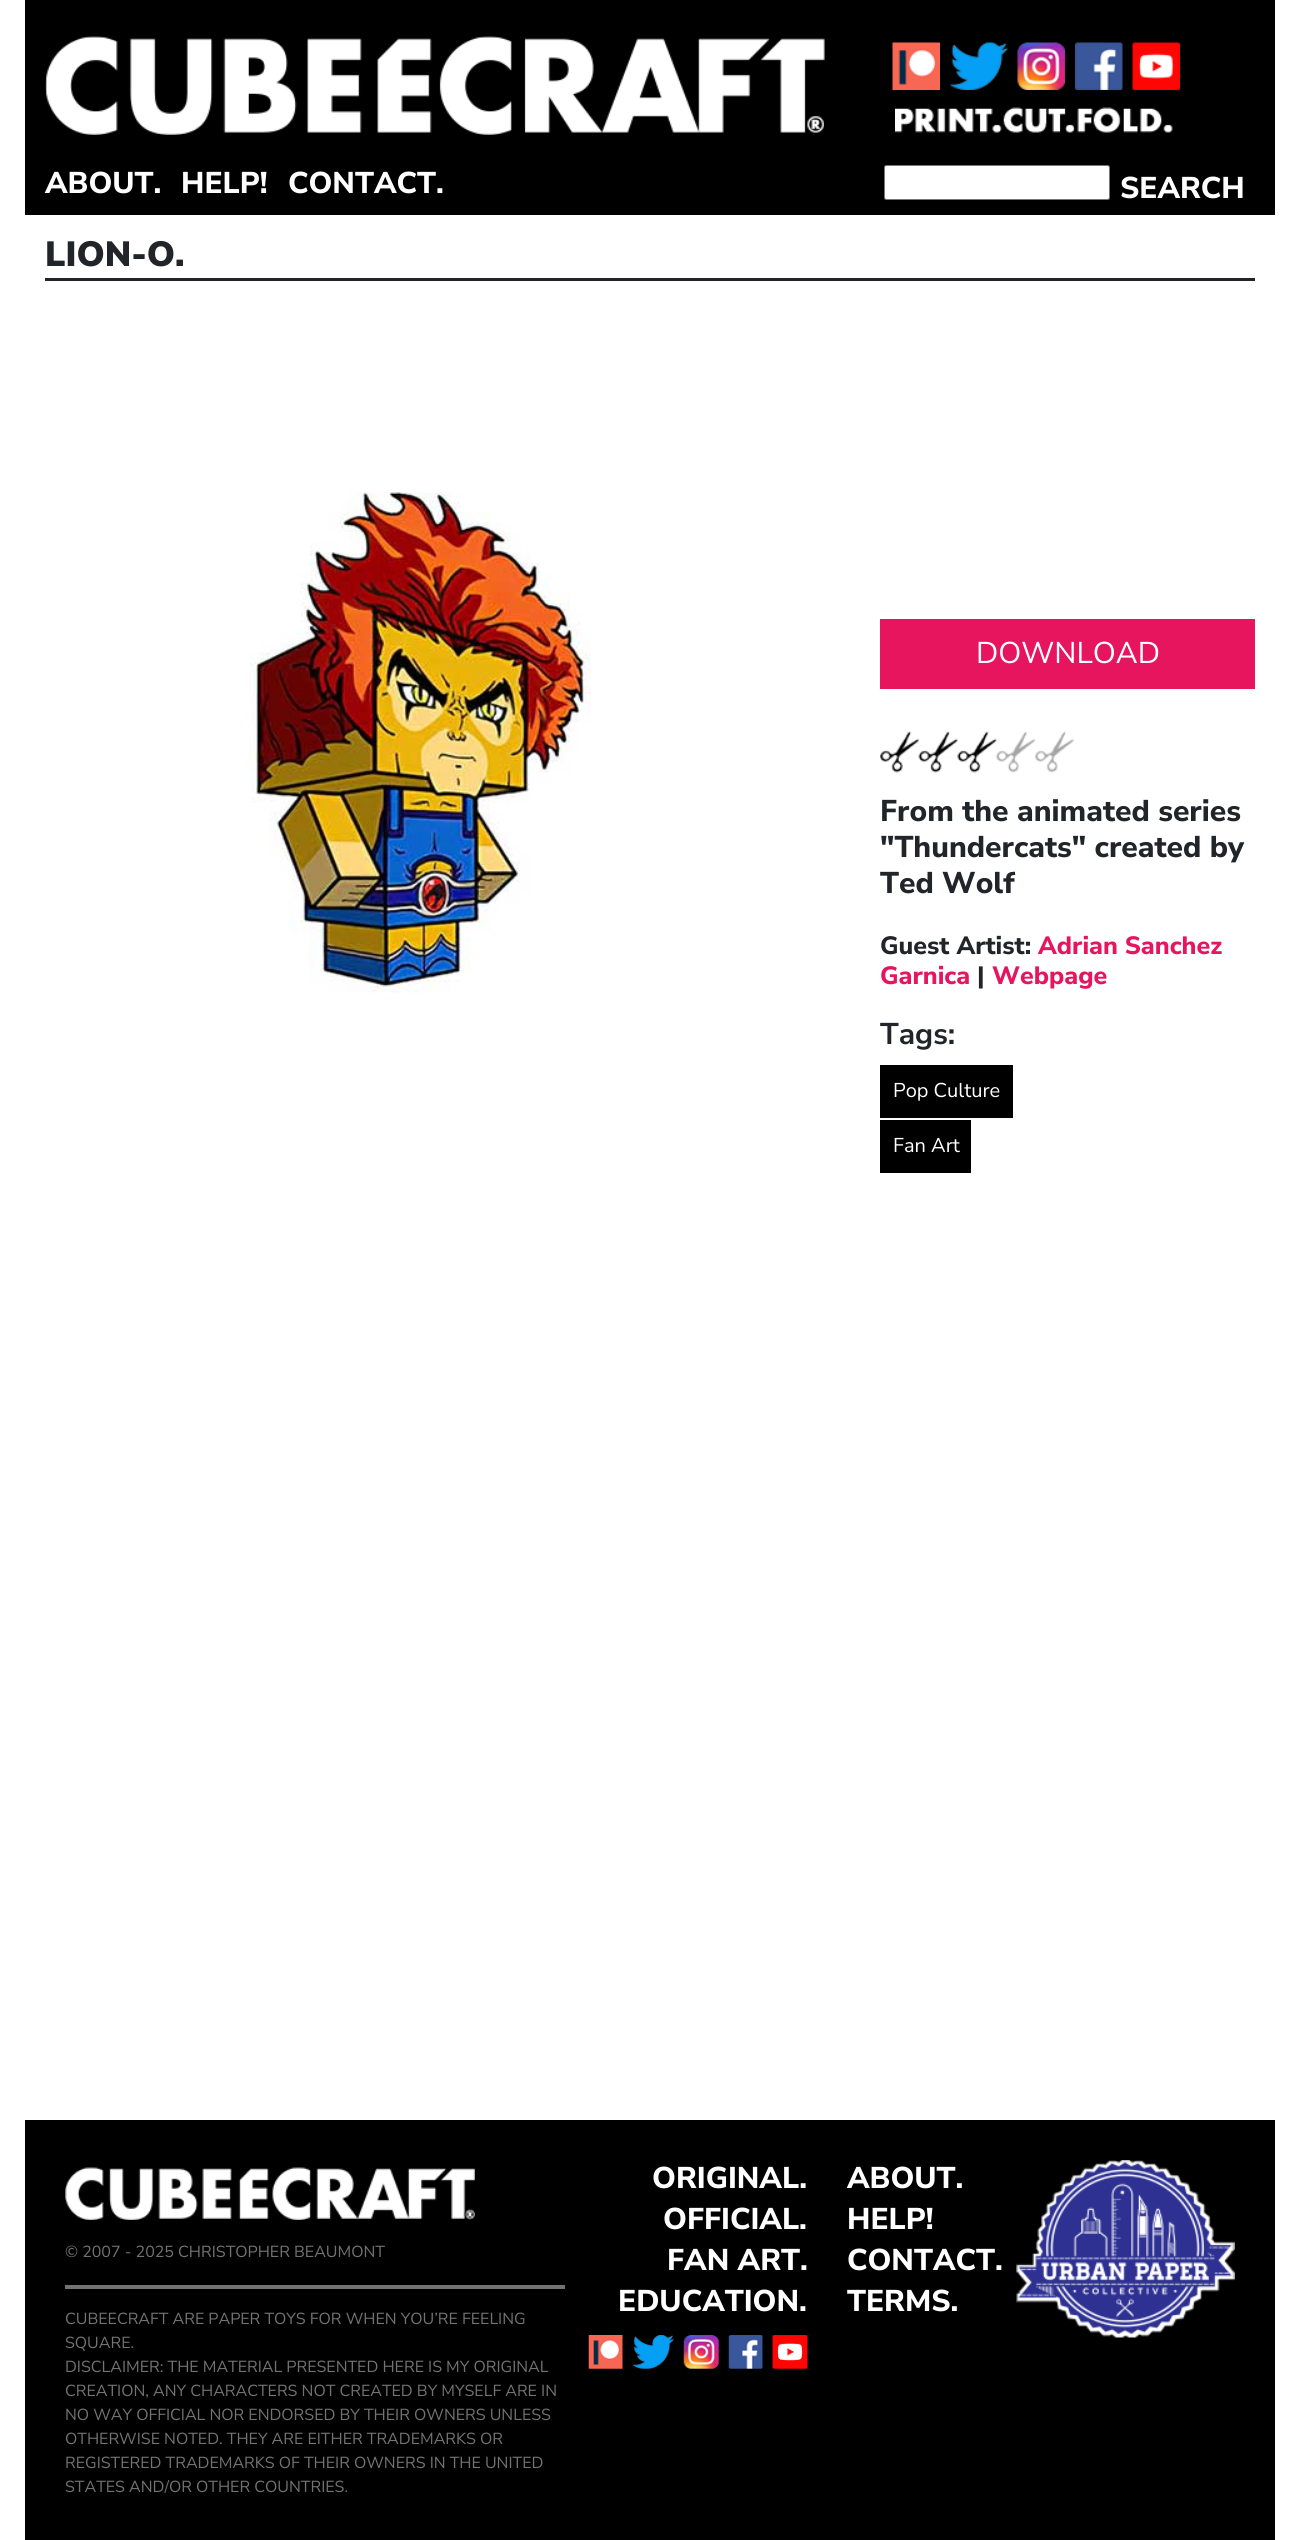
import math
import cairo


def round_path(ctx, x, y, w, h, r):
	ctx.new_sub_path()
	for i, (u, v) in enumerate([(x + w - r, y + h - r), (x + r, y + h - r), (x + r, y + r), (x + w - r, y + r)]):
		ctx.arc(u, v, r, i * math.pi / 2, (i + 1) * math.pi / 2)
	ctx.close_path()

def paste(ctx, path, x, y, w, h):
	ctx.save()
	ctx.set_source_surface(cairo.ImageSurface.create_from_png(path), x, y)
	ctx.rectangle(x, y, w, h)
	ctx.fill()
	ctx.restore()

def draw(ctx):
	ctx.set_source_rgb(1, 1, 1)
	ctx.paint()
	ctx.set_source_rgb(0, 0, 0)
	ctx.rectangle(25, 0, 1250, 215)
	ctx.fill()
	paste(ctx, 'media/1.png', 45, 36, 780, 99)
	paste(ctx, 'media/2.png', 892, 42, 48, 48)
	paste(ctx, 'media/3.png', 950, 42, 58, 48)
	paste(ctx, 'media/4.png', 1017, 42, 48, 48)
	paste(ctx, 'media/5.png', 1075, 42, 48, 48)
	paste(ctx, 'media/6.png', 1132, 42, 48, 48)
	paste(ctx, 'media/7.png', 895, 107, 278, 26)
	ctx.select_font_face('Nunito Sans ExtraBold')
	ctx.set_font_size(30)
	ctx.set_source_rgb(1, 1, 1)
	for x, y, s in [
		(45, 193, 'ABOUT.'),
		(181, 193, 'HELP!'),
		(288, 193, 'CONTACT.'),
	]:
		ctx.move_to(x, y)
		ctx.show_text(s)
	round_path(ctx, 884.5, 165.5, 225, 34, 2)
	ctx.fill_preserve()
	ctx.set_source_rgb(0.463, 0.463, 0.463)
	ctx.set_line_width(1)
	ctx.stroke()
	ctx.set_source_rgb(1, 1, 1)
	ctx.move_to(1120, 198)
	ctx.show_text('SEARCH')
	ctx.set_source_rgb(0.129, 0.145, 0.161)
	ctx.rectangle(45, 278, 1210, 3)
	ctx.fill()
	ctx.select_font_face('Nunito Sans Black')
	ctx.set_font_size(35)
	ctx.move_to(45, 266)
	ctx.show_text('LION-O.')
	paste(ctx, 'media/8.png', 249, 492, 342, 501)
	ctx.set_source_rgb(0.906, 0.082, 0.369)
	ctx.rectangle(880, 619, 375, 70)
	ctx.fill()
	ctx.select_font_face('Nunito Sans')
	ctx.set_font_size(30)
	ctx.set_source_rgb(1, 1, 1)
	ctx.move_to(976, 663)
	ctx.show_text('DOWNLOAD')
	paste(ctx, 'media/9.png', 880, 731, 194, 42)
	ctx.select_font_face('Nunito Sans ExtraBold')
	ctx.set_source_rgb(0.129, 0.145, 0.161)
	for x, y, s in [
		(880, 821, 'From the animated series'),
		(880, 857, '"Thundercats" created by'),
		(880, 893, 'Ted Wolf'),
	]:
		ctx.move_to(x, y)
		ctx.show_text(s)
	ctx.set_font_size(25)
	ctx.move_to(880, 954)
	ctx.show_text('Guest Artist:')
	ctx.set_source_rgb(0.906, 0.082, 0.369)
	ctx.move_to(1038, 954)
	ctx.show_text('Adrian Sanchez')
	ctx.move_to(880, 984)
	ctx.show_text('Garnica')
	ctx.set_source_rgb(0.129, 0.145, 0.161)
	ctx.move_to(977, 984)
	ctx.show_text('|')
	ctx.set_source_rgb(0.906, 0.082, 0.369)
	ctx.move_to(992, 984)
	ctx.show_text('Webpage')
	ctx.select_font_face('Nunito Sans', cairo.FONT_SLANT_NORMAL, cairo.FONT_WEIGHT_BOLD)
	ctx.set_font_size(30)
	ctx.set_source_rgb(0.129, 0.145, 0.161)
	ctx.move_to(880, 1044)
	ctx.show_text('Tags:')
	ctx.set_source_rgb(0, 0, 0)
	ctx.rectangle(880, 1065, 133, 53)
	ctx.fill()
	ctx.select_font_face('Nunito Sans')
	ctx.set_font_size(20)
	ctx.set_source_rgb(1, 1, 1)
	ctx.move_to(893, 1097)
	ctx.show_text('Pop Culture')
	ctx.set_source_rgb(0, 0, 0)
	ctx.rectangle(880, 1120, 91, 53)
	ctx.fill()
	ctx.set_source_rgb(1, 1, 1)
	ctx.move_to(893, 1152)
	ctx.show_text('Fan Art')
	ctx.set_source_rgb(0, 0, 0)
	ctx.rectangle(25, 2120, 1250, 420)
	ctx.fill()
	paste(ctx, 'media/10.png', 65, 2167, 410, 53)
	ctx.set_source_rgb(0.451, 0.451, 0.451)
	ctx.rectangle(65, 2285, 500, 4)
	ctx.fill()
	ctx.set_font_size(16)
	for x, y, s in [
		(65, 2257, '© 2007 - 2025 CHRISTOPHER BEAUMONT'),
		(65, 2324, 'CUBEECRAFT ARE PAPER TOYS FOR WHEN YOU’RE FEELING'),
		(65, 2348, 'SQUARE.'),
		(65, 2372, 'DISCLAIMER: THE MATERIAL PRESENTED HERE IS MY ORIGINAL'),
		(65, 2396, 'CREATION, ANY CHARACTERS NOT CREATED BY MYSELF ARE IN'),
		(65, 2420, 'NO WAY OFFICIAL NOR ENDORSED BY THEIR OWNERS UNLESS'),
		(65, 2444, 'OTHERWISE NOTED. THEY ARE EITHER TRADEMARKS OR'),
		(65, 2468, 'REGISTERED TRADEMARKS OF THEIR OWNERS IN THE UNITED'),
		(65, 2492, 'STATES AND/OR OTHER COUNTRIES.'),
	]:
		ctx.move_to(x, y)
		ctx.show_text(s)
	ctx.select_font_face('Nunito Sans ExtraBold')
	ctx.set_font_size(30)
	ctx.set_source_rgb(1, 1, 1)
	for x, y, s in [
		(652, 2188, 'ORIGINAL.'),
		(663, 2229, 'OFFICIAL.'),
		(667, 2270, 'FAN ART.'),
		(618, 2311, 'EDUCATION.'),
	]:
		ctx.move_to(x, y)
		ctx.show_text(s)
	paste(ctx, 'media/11.png', 588, 2335, 35, 34)
	paste(ctx, 'media/12.png', 632, 2335, 42, 34)
	paste(ctx, 'media/13.png', 683, 2335, 36, 34)
	paste(ctx, 'media/14.png', 728, 2335, 35, 34)
	paste(ctx, 'media/15.png', 772, 2335, 36, 34)
	for x, y, s in [
		(847, 2188, 'ABOUT.'),
		(847, 2229, 'HELP!'),
		(847, 2270, 'CONTACT.'),
		(847, 2311, 'TERMS.'),
	]:
		ctx.move_to(x, y)
		ctx.show_text(s)
	paste(ctx, 'media/16.png', 1016, 2160, 219, 178)


surface = cairo.ImageSurface(cairo.FORMAT_RGB24, 1300, 2540)
ctx = cairo.Context(surface)
options = cairo.FontOptions()
options.set_hint_metrics(cairo.HINT_METRICS_OFF)
options.set_hint_style(cairo.HINT_STYLE_NONE)
ctx.set_font_options(options)
ctx.set_miter_limit(4)
draw(ctx)
surface.write_to_png('image.png')
